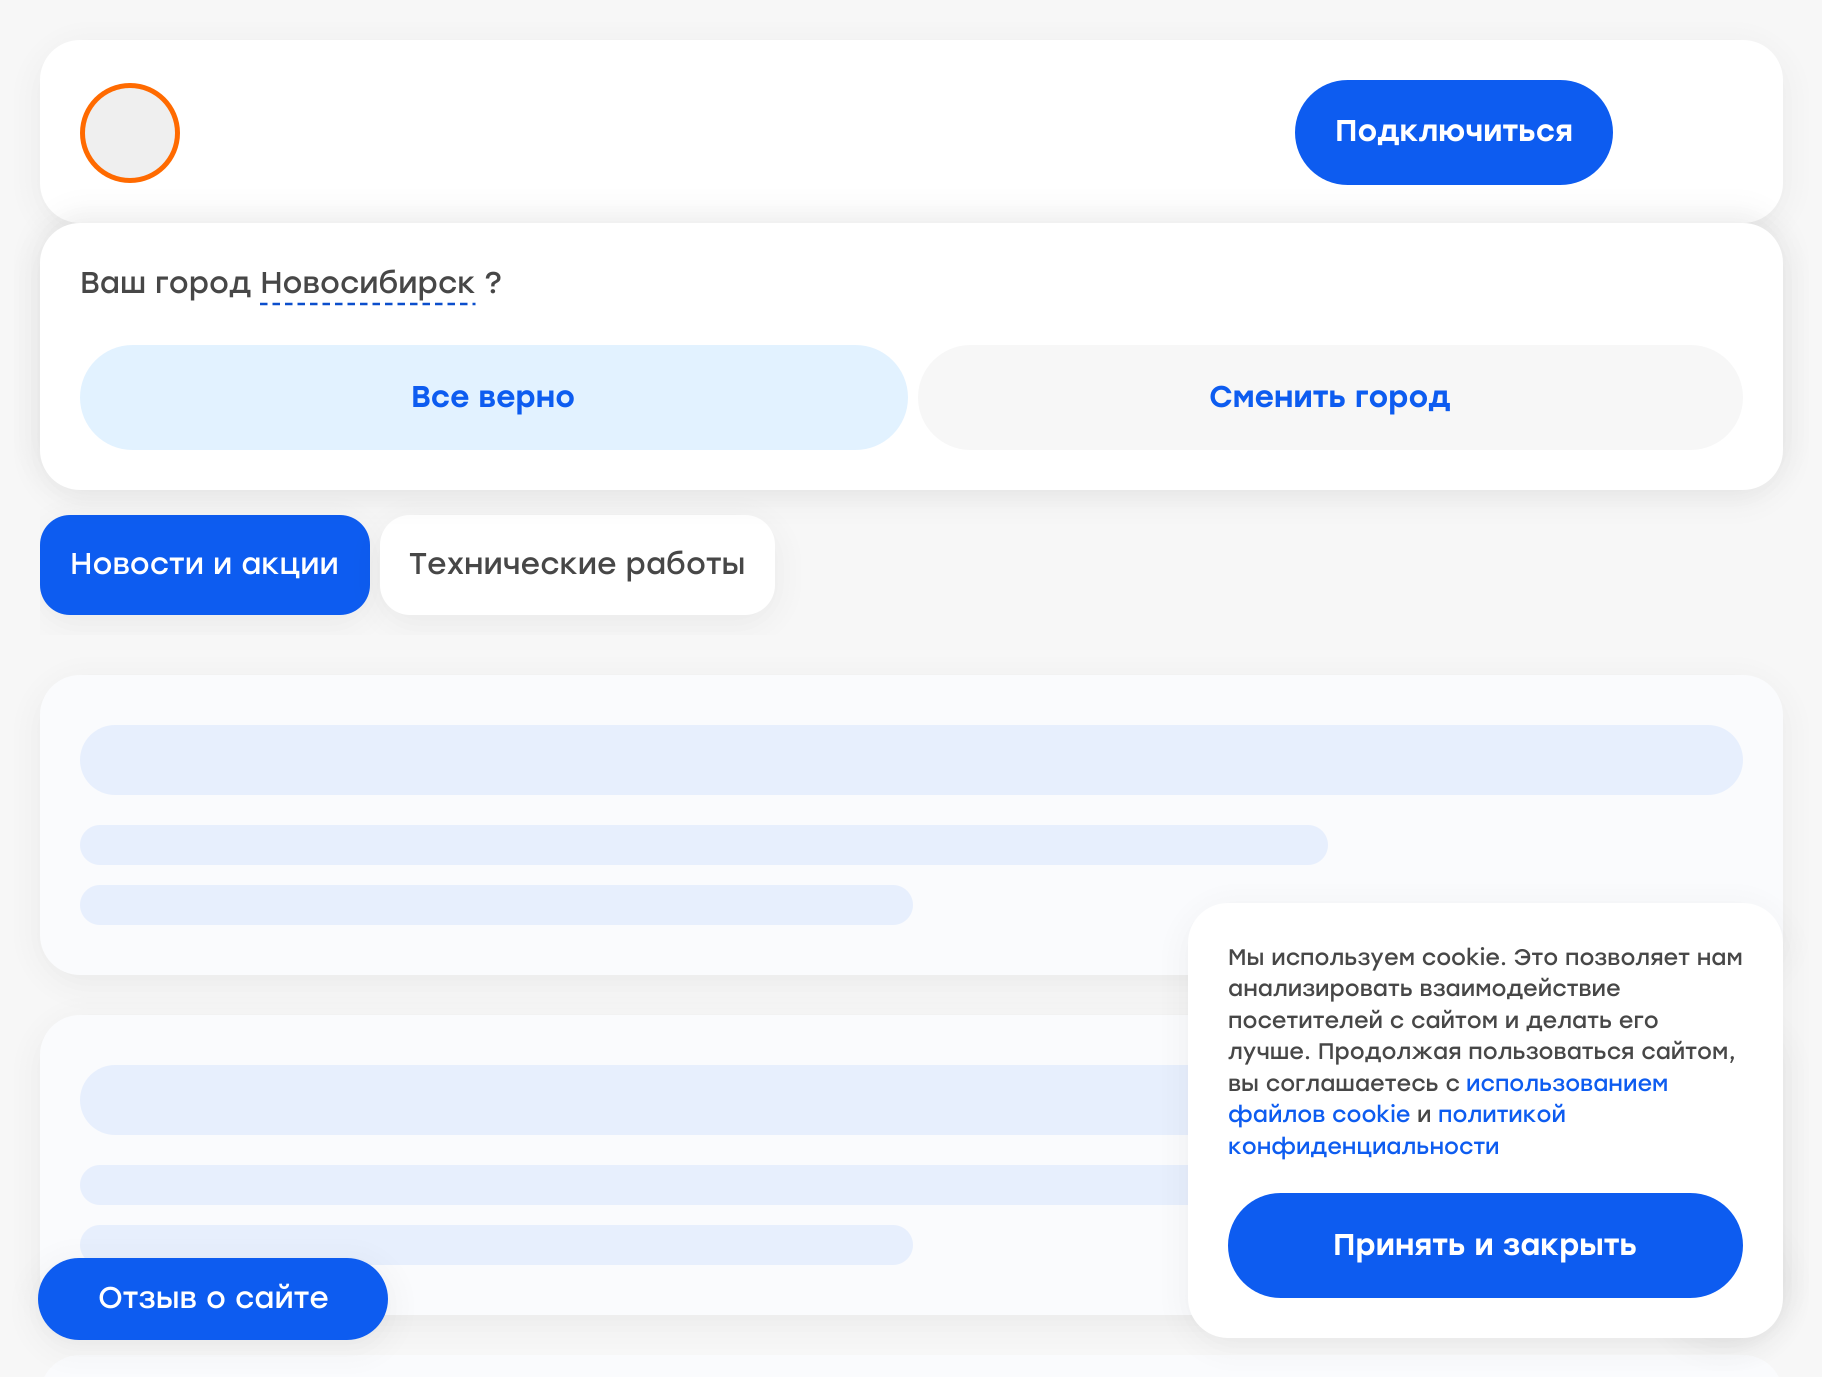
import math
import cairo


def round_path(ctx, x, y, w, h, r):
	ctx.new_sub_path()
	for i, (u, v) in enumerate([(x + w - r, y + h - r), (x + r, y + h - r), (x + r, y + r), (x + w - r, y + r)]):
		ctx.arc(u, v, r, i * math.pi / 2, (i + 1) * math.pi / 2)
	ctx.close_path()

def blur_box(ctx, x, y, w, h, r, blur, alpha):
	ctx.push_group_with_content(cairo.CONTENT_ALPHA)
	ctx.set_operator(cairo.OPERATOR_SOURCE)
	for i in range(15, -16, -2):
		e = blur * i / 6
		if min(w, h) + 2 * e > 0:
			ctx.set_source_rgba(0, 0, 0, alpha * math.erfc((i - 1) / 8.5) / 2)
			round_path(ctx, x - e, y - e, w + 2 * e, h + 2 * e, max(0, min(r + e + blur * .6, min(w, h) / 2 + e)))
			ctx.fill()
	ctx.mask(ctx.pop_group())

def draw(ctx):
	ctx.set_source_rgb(0.965, 0.965, 0.965)
	ctx.paint()
	ctx.set_source_rgb(0, 0, 0)
	blur_box(ctx, 40, 48, 1743, 182, 40, 17.5, 0.06)
	ctx.set_source_rgb(1, 1, 1)
	round_path(ctx, 40, 40, 1743, 183, 40)
	ctx.fill()
	ctx.set_source_rgb(0, 0, 0)
	blur_box(ctx, 40, 683, 1743, 300, 40, 17.5, 0.06)
	ctx.set_source_rgb(0.98, 0.984, 0.992)
	round_path(ctx, 40, 675, 1743, 300, 40)
	ctx.fill()
	ctx.save()
	ctx.rectangle(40, 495, 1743, 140)
	ctx.clip()
	ctx.set_source_rgb(0, 0, 0)
	blur_box(ctx, 40, 523, 330, 100, 30, 17.5, 0.06)
	ctx.restore()
	ctx.set_source_rgb(0.051, 0.361, 0.941)
	round_path(ctx, 40, 515, 330, 100, 30)
	ctx.fill()
	ctx.save()
	ctx.rectangle(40, 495, 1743, 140)
	ctx.clip()
	ctx.set_source_rgb(0, 0, 0)
	blur_box(ctx, 380, 523, 395, 100, 30, 17.5, 0.06)
	ctx.restore()
	ctx.set_source_rgb(1, 1, 1)
	round_path(ctx, 380, 515, 395, 100, 30)
	ctx.fill()
	ctx.set_source_rgb(0, 0, 0)
	blur_box(ctx, 40, 230, 1743, 268, 40, 17.5, 0.06)
	blur_box(ctx, 40, 215, 1743, 268, 40, 17.5, 0.06)
	ctx.set_source_rgb(0.937, 0.937, 0.937)
	ctx.arc(130, 133, 47.5, 0, 2 * math.pi)
	ctx.fill_preserve()
	ctx.set_source_rgb(1, 0.416, 0)
	ctx.set_line_width(5)
	ctx.stroke()
	ctx.set_source_rgb(0.051, 0.361, 0.941)
	round_path(ctx, 1295, 80, 318, 105, 52.5)
	ctx.fill()
	ctx.select_font_face('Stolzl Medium')
	ctx.set_font_size(30)
	ctx.set_source_rgb(1, 1, 1)
	ctx.move_to(1335, 141)
	ctx.show_text('Подключиться')
	round_path(ctx, 40, 223, 1743, 267, 40)
	ctx.fill()
	ctx.select_font_face('Stolzl')
	ctx.set_source_rgb(0.278, 0.278, 0.278)
	ctx.move_to(80, 293)
	ctx.show_text('Ваш город Новосибирск ?')
	ctx.new_path()
	ctx.move_to(260, 304)
	ctx.line_to(475.5, 304)
	ctx.set_source_rgb(0.043, 0.306, 0.8)
	ctx.set_line_width(2.5)
	ctx.set_dash([7.5, 5])
	ctx.stroke()
	ctx.set_source_rgb(0.886, 0.949, 1)
	round_path(ctx, 80, 345, 828, 105, 52.5)
	ctx.fill()
	ctx.select_font_face('Stolzl Medium')
	ctx.set_source_rgb(0.051, 0.361, 0.941)
	ctx.move_to(411, 407)
	ctx.show_text('Все верно')
	ctx.set_source_rgb(0.965, 0.965, 0.965)
	round_path(ctx, 918, 345, 825, 105, 52.5)
	ctx.fill()
	ctx.set_source_rgb(0.051, 0.361, 0.941)
	ctx.move_to(1209, 407)
	ctx.show_text('Сменить город')
	ctx.select_font_face('Stolzl')
	ctx.set_source_rgb(1, 1, 1)
	ctx.move_to(70, 574)
	ctx.show_text('Новости и акции')
	ctx.set_source_rgb(0.278, 0.278, 0.278)
	ctx.move_to(409, 574)
	ctx.show_text('Технические работы')
	ctx.set_source_rgb(0.906, 0.937, 0.992)
	round_path(ctx, 80, 725, 1663, 70, 35)
	ctx.fill()
	round_path(ctx, 80, 825, 1248, 40, 20)
	ctx.fill()
	round_path(ctx, 80, 885, 833, 40, 20)
	ctx.fill()
	ctx.set_source_rgb(0, 0, 0)
	blur_box(ctx, 40, 1023, 1743, 300, 40, 17.5, 0.06)
	ctx.set_source_rgb(0.98, 0.984, 0.992)
	round_path(ctx, 40, 1015, 1743, 300, 40)
	ctx.fill()
	ctx.set_source_rgb(0.906, 0.937, 0.992)
	round_path(ctx, 80, 1065, 1663, 70, 35)
	ctx.fill()
	round_path(ctx, 80, 1165, 1248, 40, 20)
	ctx.fill()
	round_path(ctx, 80, 1225, 833, 40, 20)
	ctx.fill()
	ctx.set_source_rgb(0.98, 0.984, 0.992)
	round_path(ctx, 40, 1355, 1743, 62, 40)
	ctx.fill()
	ctx.set_source_rgb(0, 0, 0)
	blur_box(ctx, 1188, 910, 595, 435, 40, 17.5, 0.06)
	blur_box(ctx, 1663, 1225, 120, 120, 60, 17.5, 0.06)
	ctx.set_source_rgb(1, 1, 1)
	round_path(ctx, 1188, 903, 595, 435, 40)
	ctx.fill()
	ctx.set_font_size(22.5)
	ctx.set_source_rgb(0.278, 0.278, 0.278)
	for x, y, s in [
		(1228, 965, 'Мы используем cookie. Это позволяет нам'),
		(1228, 996, 'анализировать взаимодействие'),
		(1228, 1028, 'посетителей с сайтом и делать его'),
		(1228, 1059, 'лучше. Продолжая пользоваться сайтом,'),
		(1228, 1091, 'вы соглашаетесь с'),
	]:
		ctx.move_to(x, y)
		ctx.show_text(s)
	ctx.set_source_rgb(0.051, 0.361, 0.941)
	ctx.move_to(1466, 1091)
	ctx.show_text('использованием')
	ctx.move_to(1228, 1122)
	ctx.show_text('файлов cookie')
	ctx.set_source_rgb(0.278, 0.278, 0.278)
	ctx.move_to(1417, 1122)
	ctx.show_text('и')
	ctx.set_source_rgb(0.051, 0.361, 0.941)
	ctx.move_to(1438, 1122)
	ctx.show_text('политикой')
	ctx.move_to(1228, 1154)
	ctx.show_text('конфиденциальности')
	round_path(ctx, 1228, 1193, 515, 105, 52.5)
	ctx.fill()
	ctx.select_font_face('Stolzl Medium')
	ctx.set_font_size(30)
	ctx.set_source_rgb(1, 1, 1)
	ctx.move_to(1333, 1255)
	ctx.show_text('Принять и закрыть')
	ctx.set_source_rgb(0, 0, 0)
	blur_box(ctx, 38, 1265, 350, 83, 41.5, 17.5, 0.06)
	ctx.set_source_rgb(0.051, 0.361, 0.941)
	round_path(ctx, 38, 1258, 350, 82, 41)
	ctx.fill()
	ctx.select_font_face('Stolzl')
	ctx.set_source_rgb(1, 1, 1)
	ctx.move_to(98, 1308)
	ctx.show_text('Отзыв о сайте')


surface = cairo.ImageSurface(cairo.FORMAT_RGB24, 1822, 1377)
ctx = cairo.Context(surface)
options = cairo.FontOptions()
options.set_hint_metrics(cairo.HINT_METRICS_OFF)
options.set_hint_style(cairo.HINT_STYLE_NONE)
ctx.set_font_options(options)
ctx.set_miter_limit(4)
draw(ctx)
surface.write_to_png('image.png')
